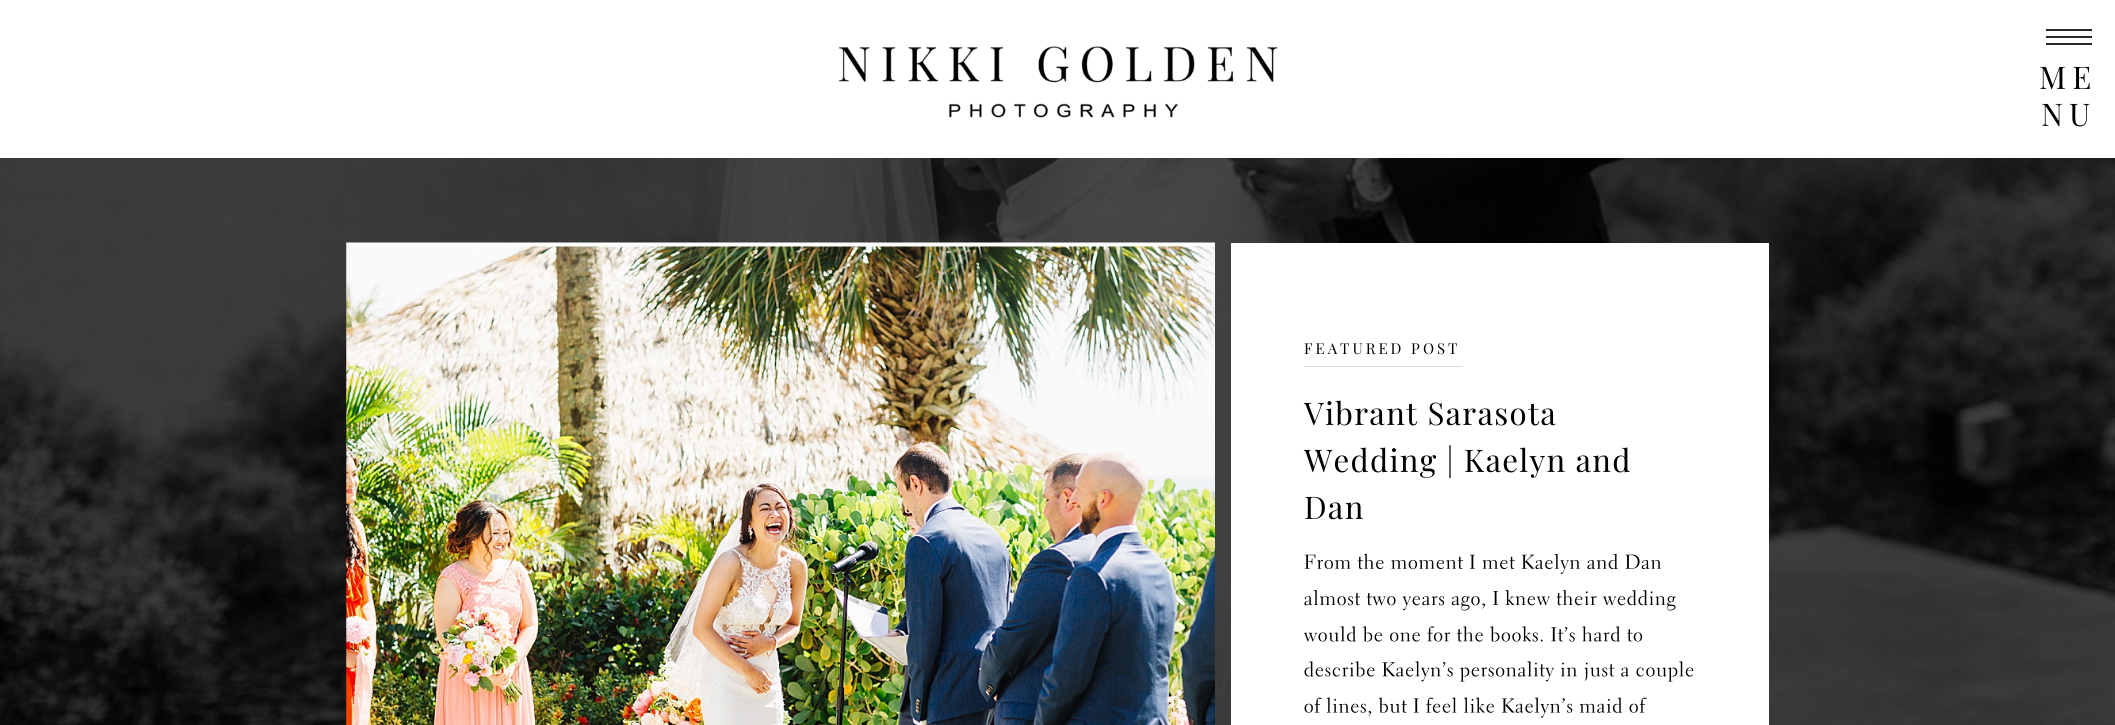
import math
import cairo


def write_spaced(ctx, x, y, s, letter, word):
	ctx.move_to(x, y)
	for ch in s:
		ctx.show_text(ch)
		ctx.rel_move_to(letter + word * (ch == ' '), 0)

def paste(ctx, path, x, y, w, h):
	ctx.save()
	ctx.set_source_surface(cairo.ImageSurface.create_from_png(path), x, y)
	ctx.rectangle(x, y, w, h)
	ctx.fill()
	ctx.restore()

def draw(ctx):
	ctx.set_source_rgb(0, 0, 0)
	ctx.paint()
	ctx.set_source_rgb(1, 1, 1)
	ctx.rectangle(0, 0, 2115, 158)
	ctx.fill()
	ctx.set_source_rgb(0.153, 0.153, 0.153)
	ctx.new_path()
	ctx.move_to(2046, 43)
	ctx.line_to(2092, 43)
	ctx.line_to(2092, 45)
	ctx.line_to(2046, 45)
	ctx.close_path()
	ctx.move_to(2046, 36)
	ctx.line_to(2092, 36)
	ctx.line_to(2092, 38)
	ctx.line_to(2046, 38)
	ctx.close_path()
	ctx.move_to(2046, 29)
	ctx.line_to(2092, 29)
	ctx.line_to(2092, 31)
	ctx.line_to(2046, 31)
	ctx.close_path()
	ctx.fill()
	paste(ctx, 'media/1.png', 838, 46, 440, 72)
	ctx.select_font_face('Playfair Display')
	ctx.set_font_size(31.25)
	ctx.set_source_rgb(0, 0, 0)
	write_spaced(ctx, 2039, 89, 'ME', 6, 0)
	write_spaced(ctx, 2041, 126, 'NU', 6, 0)
	paste(ctx, 'media/2.png', 0, 158, 2115, 567)
	paste(ctx, 'media/3.png', 346, 242, 869, 483)
	ctx.set_source_rgb(1, 1, 1)
	ctx.rectangle(1231, 243, 538, 482)
	ctx.fill()
	ctx.set_font_size(15)
	ctx.set_source_rgb(0, 0, 0)
	write_spaced(ctx, 1304, 354, 'FEATURED POST', 3, 0)
	ctx.set_source_rgb(0.867, 0.867, 0.867)
	ctx.rectangle(1304, 366, 159, 1)
	ctx.fill()
	ctx.set_font_size(31.25)
	ctx.set_source_rgb(0, 0, 0)
	for x, y, s in [
		(1304, 425, 'Vibrant Sarasota'),
		(1304, 472, 'Wedding | Kaelyn and'),
		(1304, 519, 'Dan'),
	]:
		write_spaced(ctx, x, y, s, 1.25, 0)
	paste(ctx, 'media/4.png', 1304, 553, 357, 21)
	paste(ctx, 'media/5.png', 1304, 590, 372, 21)
	paste(ctx, 'media/6.png', 1304, 626, 339, 16)
	paste(ctx, 'media/7.png', 1304, 661, 390, 21)
	paste(ctx, 'media/8.png', 1304, 697, 343, 21)


surface = cairo.ImageSurface(cairo.FORMAT_RGB24, 2115, 725)
ctx = cairo.Context(surface)
options = cairo.FontOptions()
options.set_hint_metrics(cairo.HINT_METRICS_OFF)
options.set_hint_style(cairo.HINT_STYLE_NONE)
ctx.set_font_options(options)
ctx.set_miter_limit(4)
draw(ctx)
surface.write_to_png('image.png')
